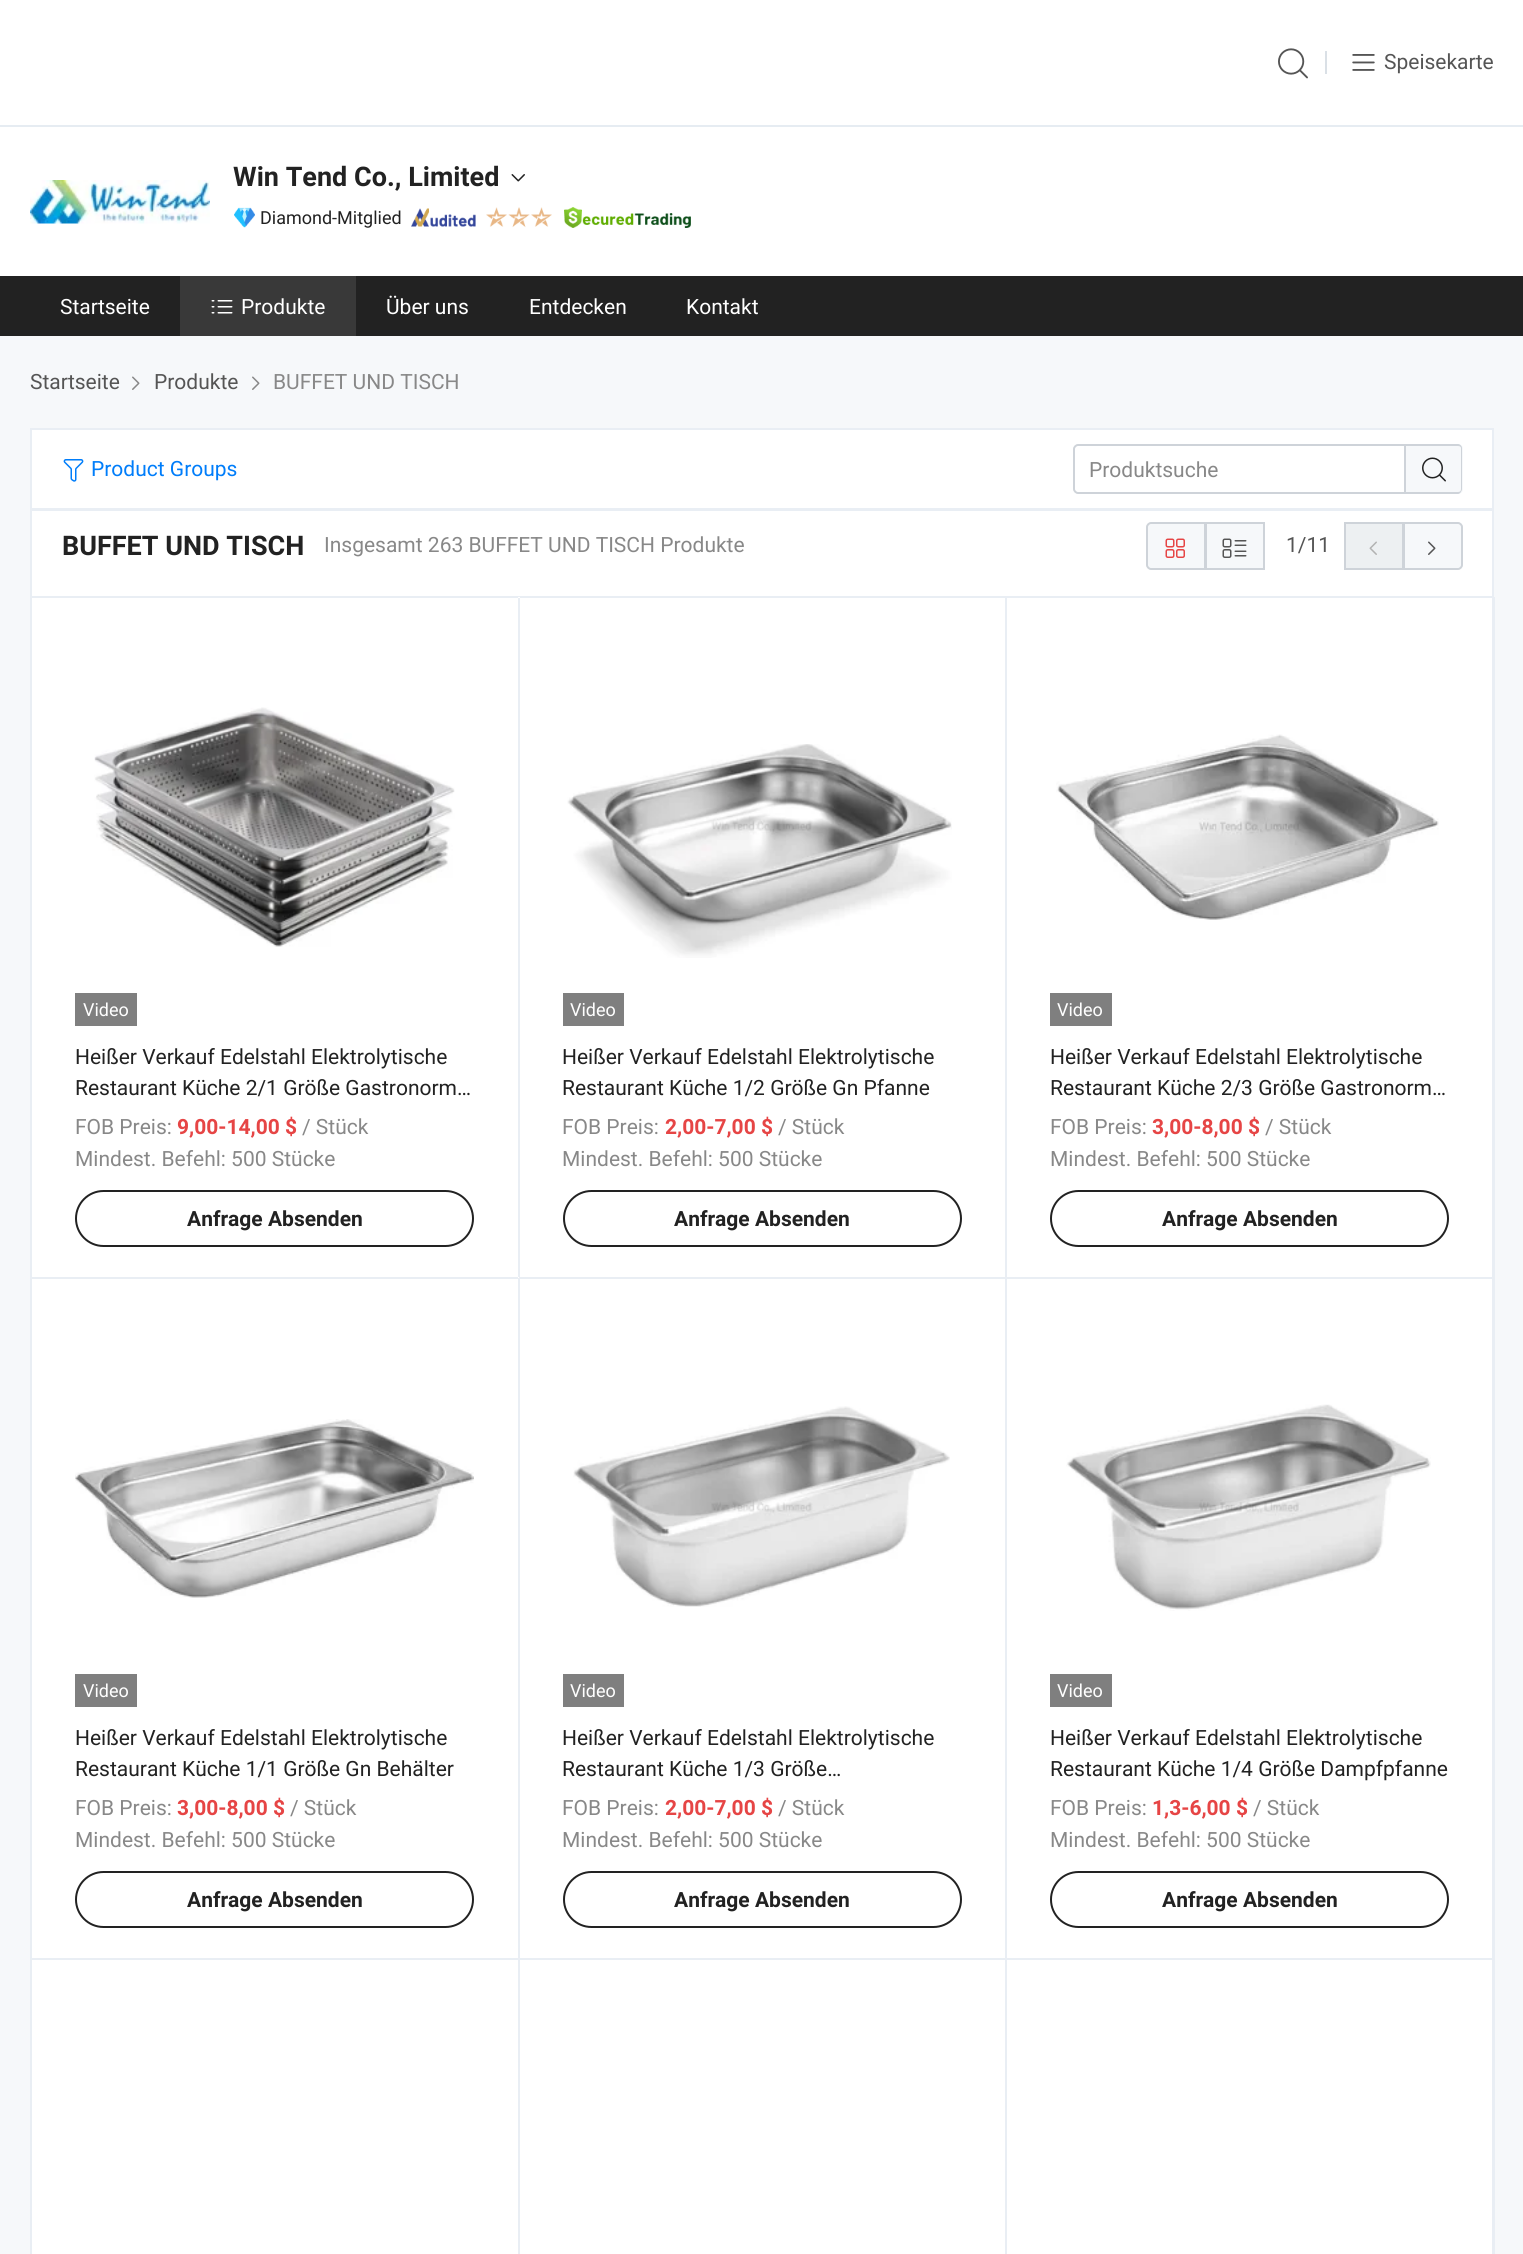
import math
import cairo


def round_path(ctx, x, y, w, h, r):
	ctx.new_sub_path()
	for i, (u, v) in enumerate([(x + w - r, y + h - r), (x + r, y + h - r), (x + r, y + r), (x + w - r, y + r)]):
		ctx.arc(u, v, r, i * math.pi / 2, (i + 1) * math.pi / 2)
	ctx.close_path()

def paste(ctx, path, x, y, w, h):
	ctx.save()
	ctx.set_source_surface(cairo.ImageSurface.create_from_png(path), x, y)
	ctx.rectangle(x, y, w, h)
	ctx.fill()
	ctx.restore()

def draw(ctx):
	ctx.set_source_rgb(1, 1, 1)
	ctx.paint()
	paste(ctx, 'media/1.png', 1278, 48, 30, 31)
	ctx.set_source_rgb(0.855, 0.878, 0.902)
	ctx.rectangle(1325, 51, 2, 23)
	ctx.fill()
	paste(ctx, 'media/2.png', 1352, 54, 23, 17)
	ctx.select_font_face('Roboto')
	ctx.set_font_size(21)
	ctx.set_source_rgb(0.333, 0.333, 0.333)
	ctx.move_to(1384, 69)
	ctx.show_text('Speisekarte')
	ctx.set_source_rgb(0.902, 0.925, 0.949)
	ctx.rectangle(0, 125, 1523, 2)
	ctx.fill()
	paste(ctx, 'media/3.png', 30, 180, 180, 44)
	ctx.select_font_face('Roboto', cairo.FONT_SLANT_NORMAL, cairo.FONT_WEIGHT_BOLD)
	ctx.set_font_size(27)
	ctx.set_source_rgb(0.133, 0.133, 0.133)
	ctx.move_to(233, 186)
	ctx.show_text('Win Tend Co., Limited')
	paste(ctx, 'media/4.png', 511, 174, 14, 8)
	paste(ctx, 'media/5.png', 234, 207, 21, 21)
	ctx.select_font_face('Roboto')
	ctx.set_font_size(18)
	ctx.move_to(260, 224)
	ctx.show_text('Diamond-Mitglied')
	paste(ctx, 'media/6.png', 411, 208, 65, 19)
	paste(ctx, 'media/7.png', 486, 207, 21, 20)
	paste(ctx, 'media/8.png', 508, 207, 22, 21)
	paste(ctx, 'media/9.png', 531, 207, 21, 20)
	paste(ctx, 'media/10.png', 564, 207, 127, 21)
	ctx.rectangle(0, 276, 1523, 60)
	ctx.fill()
	ctx.set_font_size(21)
	ctx.set_source_rgb(1, 1, 1)
	ctx.move_to(60, 314)
	ctx.show_text('Startseite')
	ctx.set_source_rgb(0.224, 0.224, 0.224)
	ctx.rectangle(180, 276, 176, 60)
	ctx.fill()
	paste(ctx, 'media/11.png', 211, 300, 22, 14)
	ctx.set_source_rgb(1, 1, 1)
	for x, y, s in [
		(241, 314, 'Produkte'),
		(386, 314, 'Über uns'),
		(529, 314, 'Entdecken'),
		(686, 314, 'Kontakt'),
	]:
		ctx.move_to(x, y)
		ctx.show_text(s)
	ctx.set_source_rgb(0.961, 0.969, 0.98)
	ctx.rectangle(0, 336, 1523, 1918)
	ctx.fill()
	ctx.set_source_rgb(0.333, 0.333, 0.333)
	ctx.move_to(30, 389)
	ctx.show_text('Startseite')
	paste(ctx, 'media/12.png', 132, 376, 8, 14)
	ctx.move_to(154, 389)
	ctx.show_text('Produkte')
	paste(ctx, 'media/12.png', 252, 376, 8, 14)
	ctx.set_source_rgb(0.533, 0.533, 0.533)
	ctx.move_to(273, 389)
	ctx.show_text('BUFFET UND TISCH')
	ctx.set_source_rgb(1, 1, 1)
	ctx.rectangle(31, 429, 1462, 80)
	ctx.fill_preserve()
	ctx.set_source_rgb(0.914, 0.933, 0.957)
	ctx.stroke()
	paste(ctx, 'media/13.png', 63, 459, 21, 23)
	ctx.set_source_rgb(0, 0.49, 0.98)
	ctx.move_to(91, 476)
	ctx.show_text('Product Groups')
	ctx.new_path()
	ctx.move_to(1078, 445)
	ctx.line_to(1405, 445)
	ctx.line_to(1405, 493)
	ctx.line_to(1078, 493)
	ctx.curve_to(1076, 493, 1074, 491, 1074, 489)
	ctx.line_to(1074, 449)
	ctx.curve_to(1074, 447, 1076, 445, 1078, 445)
	ctx.close_path()
	ctx.set_source_rgb(0.808, 0.827, 0.851)
	ctx.stroke()
	ctx.set_source_rgb(0.533, 0.533, 0.533)
	ctx.move_to(1089, 477)
	ctx.show_text('Produktsuche')
	ctx.set_source_rgb(0.961, 0.969, 0.98)
	ctx.new_path()
	ctx.move_to(1406, 444)
	ctx.line_to(1458, 444)
	ctx.curve_to(1461, 444, 1463, 446, 1463, 449)
	ctx.line_to(1463, 489)
	ctx.curve_to(1463, 492, 1461, 494, 1458, 494)
	ctx.line_to(1406, 494)
	ctx.close_path()
	ctx.fill()
	ctx.set_source_rgb(0.808, 0.827, 0.851)
	ctx.set_fill_rule(cairo.FILL_RULE_EVEN_ODD)
	ctx.new_path()
	ctx.move_to(1406, 444)
	ctx.line_to(1458, 444)
	ctx.curve_to(1460, 444, 1462, 446, 1462, 448)
	ctx.line_to(1462, 489)
	ctx.curve_to(1462, 491, 1460, 494, 1458, 494)
	ctx.line_to(1406, 494)
	ctx.close_path()
	ctx.move_to(1406, 446)
	ctx.line_to(1458, 446)
	ctx.curve_to(1460, 446, 1461, 447, 1461, 448)
	ctx.line_to(1461, 489)
	ctx.curve_to(1461, 491, 1460, 492, 1458, 492)
	ctx.line_to(1406, 492)
	ctx.close_path()
	ctx.fill()
	paste(ctx, 'media/14.png', 1422, 457, 24, 25)
	ctx.set_source_rgb(1, 1, 1)
	ctx.rectangle(31, 510, 1462, 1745)
	ctx.fill_preserve()
	ctx.set_source_rgb(0.914, 0.933, 0.957)
	ctx.stroke()
	ctx.select_font_face('Roboto', cairo.FONT_SLANT_NORMAL, cairo.FONT_WEIGHT_BOLD)
	ctx.set_font_size(27)
	ctx.set_source_rgb(0.133, 0.133, 0.133)
	ctx.move_to(62, 555)
	ctx.show_text('BUFFET UND TISCH')
	ctx.select_font_face('Roboto')
	ctx.set_font_size(21)
	ctx.set_source_rgb(0.533, 0.533, 0.533)
	ctx.move_to(324, 552)
	ctx.show_text('Insgesamt 263 BUFFET UND TISCH Produkte')
	ctx.set_source_rgb(0.961, 0.969, 0.98)
	ctx.new_path()
	ctx.move_to(1151, 523)
	ctx.line_to(1205, 523)
	ctx.line_to(1205, 569)
	ctx.line_to(1151, 569)
	ctx.curve_to(1149, 569, 1147, 567, 1147, 565)
	ctx.line_to(1147, 527)
	ctx.curve_to(1147, 525, 1149, 523, 1151, 523)
	ctx.close_path()
	ctx.fill_preserve()
	ctx.set_source_rgb(0.808, 0.827, 0.851)
	ctx.stroke()
	paste(ctx, 'media/15.png', 1165, 538, 20, 20)
	ctx.set_source_rgb(0.961, 0.969, 0.98)
	ctx.rectangle(1206, 523, 58, 46)
	ctx.fill_preserve()
	ctx.set_source_rgb(0.808, 0.827, 0.851)
	ctx.stroke()
	paste(ctx, 'media/16.png', 1222, 538, 25, 20)
	ctx.set_source_rgb(0.333, 0.333, 0.333)
	ctx.move_to(1286, 552)
	ctx.show_text('1/11')
	ctx.set_source_rgb(0.929, 0.941, 0.949)
	ctx.rectangle(1345, 523, 58, 46)
	ctx.fill_preserve()
	ctx.set_source_rgb(0.808, 0.827, 0.851)
	ctx.stroke()
	paste(ctx, 'media/17.png', 1369, 541, 8, 14)
	ctx.set_source_rgb(0.961, 0.969, 0.98)
	ctx.new_path()
	ctx.move_to(1404, 523)
	ctx.line_to(1458, 523)
	ctx.curve_to(1460, 523, 1462, 525, 1462, 527)
	ctx.line_to(1462, 565)
	ctx.curve_to(1462, 567, 1460, 569, 1458, 569)
	ctx.line_to(1404, 569)
	ctx.close_path()
	ctx.fill_preserve()
	ctx.set_source_rgb(0.808, 0.827, 0.851)
	ctx.stroke()
	paste(ctx, 'media/18.png', 1428, 541, 8, 14)
	ctx.set_source_rgb(0.914, 0.933, 0.957)
	ctx.rectangle(32, 596, 1462, 2)
	ctx.rectangle(518, 597, 2, 681)
	ctx.rectangle(32, 1277, 487, 2)
	ctx.fill()
	paste(ctx, 'media/19.png', 94, 707, 361, 240)
	ctx.set_source_rgb(0.498, 0.498, 0.498)
	ctx.rectangle(75, 993, 62, 33)
	ctx.fill()
	ctx.set_font_size(18)
	ctx.set_source_rgb(1, 1, 1)
	ctx.move_to(83, 1016)
	ctx.show_text('Video')
	ctx.set_font_size(21)
	ctx.set_source_rgb(0.133, 0.133, 0.133)
	ctx.move_to(75, 1064)
	ctx.show_text('Heißer Verkauf Edelstahl Elektrolytische')
	ctx.move_to(75, 1095)
	ctx.show_text('Restaurant Küche 2/1 Größe Gastronorm…')
	ctx.set_source_rgb(0.533, 0.533, 0.533)
	ctx.move_to(75, 1134)
	ctx.show_text('FOB Preis:')
	ctx.select_font_face('Roboto', cairo.FONT_SLANT_NORMAL, cairo.FONT_WEIGHT_BOLD)
	ctx.set_source_rgb(0.902, 0.271, 0.271)
	ctx.move_to(177, 1134)
	ctx.show_text('9,00-14,00 $')
	ctx.select_font_face('Roboto')
	ctx.set_source_rgb(0.533, 0.533, 0.533)
	ctx.move_to(302, 1134)
	ctx.show_text('/ Stück')
	ctx.move_to(75, 1166)
	ctx.show_text('Mindest. Befehl: 500 Stücke')
	round_path(ctx, 76, 1191, 397, 55, 27.5)
	ctx.set_source_rgb(0.133, 0.133, 0.133)
	ctx.stroke()
	ctx.select_font_face('Roboto', cairo.FONT_SLANT_NORMAL, cairo.FONT_WEIGHT_BOLD)
	ctx.move_to(187, 1226)
	ctx.show_text('Anfrage Absenden')
	ctx.set_source_rgb(0.914, 0.933, 0.957)
	ctx.rectangle(1005, 597, 2, 681)
	ctx.fill()
	ctx.rectangle(519, 1277, 975, 2)
	ctx.fill()
	paste(ctx, 'media/20.png', 567, 744, 385, 214)
	ctx.set_source_rgb(0.498, 0.498, 0.498)
	ctx.rectangle(563, 993, 61, 33)
	ctx.fill()
	ctx.select_font_face('Roboto')
	ctx.set_font_size(18)
	ctx.set_source_rgb(1, 1, 1)
	ctx.move_to(570, 1016)
	ctx.show_text('Video')
	ctx.set_font_size(21)
	ctx.set_source_rgb(0.133, 0.133, 0.133)
	ctx.move_to(562, 1064)
	ctx.show_text('Heißer Verkauf Edelstahl Elektrolytische')
	ctx.move_to(562, 1095)
	ctx.show_text('Restaurant Küche 1/2 Größe Gn Pfanne')
	ctx.set_source_rgb(0.533, 0.533, 0.533)
	ctx.move_to(562, 1134)
	ctx.show_text('FOB Preis:')
	ctx.select_font_face('Roboto', cairo.FONT_SLANT_NORMAL, cairo.FONT_WEIGHT_BOLD)
	ctx.set_source_rgb(0.902, 0.271, 0.271)
	ctx.move_to(665, 1134)
	ctx.show_text('2,00-7,00 $')
	ctx.select_font_face('Roboto')
	ctx.set_source_rgb(0.533, 0.533, 0.533)
	ctx.move_to(778, 1134)
	ctx.show_text('/ Stück')
	ctx.move_to(562, 1166)
	ctx.show_text('Mindest. Befehl: 500 Stücke')
	round_path(ctx, 564, 1191, 397, 55, 27.5)
	ctx.set_source_rgb(0.133, 0.133, 0.133)
	ctx.stroke()
	ctx.select_font_face('Roboto', cairo.FONT_SLANT_NORMAL, cairo.FONT_WEIGHT_BOLD)
	ctx.move_to(674, 1226)
	ctx.show_text('Anfrage Absenden')
	ctx.set_source_rgb(0.914, 0.933, 0.957)
	ctx.rectangle(1494, 597, 1, 1657)
	ctx.fill()
	paste(ctx, 'media/21.png', 1056, 734, 383, 186)
	ctx.set_source_rgb(0.498, 0.498, 0.498)
	ctx.rectangle(1050, 993, 62, 33)
	ctx.fill()
	ctx.select_font_face('Roboto')
	ctx.set_font_size(18)
	ctx.set_source_rgb(1, 1, 1)
	ctx.move_to(1057, 1016)
	ctx.show_text('Video')
	ctx.set_font_size(21)
	ctx.set_source_rgb(0.133, 0.133, 0.133)
	ctx.move_to(1050, 1064)
	ctx.show_text('Heißer Verkauf Edelstahl Elektrolytische')
	ctx.move_to(1050, 1095)
	ctx.show_text('Restaurant Küche 2/3 Größe Gastronorm…')
	ctx.set_source_rgb(0.533, 0.533, 0.533)
	ctx.move_to(1050, 1134)
	ctx.show_text('FOB Preis:')
	ctx.select_font_face('Roboto', cairo.FONT_SLANT_NORMAL, cairo.FONT_WEIGHT_BOLD)
	ctx.set_source_rgb(0.902, 0.271, 0.271)
	ctx.move_to(1152, 1134)
	ctx.show_text('3,00-8,00 $')
	ctx.select_font_face('Roboto')
	ctx.set_source_rgb(0.533, 0.533, 0.533)
	ctx.move_to(1265, 1134)
	ctx.show_text('/ Stück')
	ctx.move_to(1050, 1166)
	ctx.show_text('Mindest. Befehl: 500 Stücke')
	round_path(ctx, 1051, 1191, 397, 55, 27.5)
	ctx.set_source_rgb(0.133, 0.133, 0.133)
	ctx.stroke()
	ctx.select_font_face('Roboto', cairo.FONT_SLANT_NORMAL, cairo.FONT_WEIGHT_BOLD)
	ctx.move_to(1162, 1226)
	ctx.show_text('Anfrage Absenden')
	ctx.set_source_rgb(0.914, 0.933, 0.957)
	ctx.rectangle(518, 1278, 2, 681)
	ctx.fill()
	ctx.rectangle(32, 1958, 487, 2)
	ctx.fill()
	paste(ctx, 'media/22.png', 75, 1419, 399, 179)
	ctx.set_source_rgb(0.498, 0.498, 0.498)
	ctx.rectangle(75, 1674, 62, 33)
	ctx.fill()
	ctx.select_font_face('Roboto')
	ctx.set_font_size(18)
	ctx.set_source_rgb(1, 1, 1)
	ctx.move_to(83, 1697)
	ctx.show_text('Video')
	ctx.set_font_size(21)
	ctx.set_source_rgb(0.133, 0.133, 0.133)
	ctx.move_to(75, 1745)
	ctx.show_text('Heißer Verkauf Edelstahl Elektrolytische')
	ctx.move_to(75, 1776)
	ctx.show_text('Restaurant Küche 1/1 Größe Gn Behälter')
	ctx.set_source_rgb(0.533, 0.533, 0.533)
	ctx.move_to(75, 1815)
	ctx.show_text('FOB Preis:')
	ctx.select_font_face('Roboto', cairo.FONT_SLANT_NORMAL, cairo.FONT_WEIGHT_BOLD)
	ctx.set_source_rgb(0.902, 0.271, 0.271)
	ctx.move_to(177, 1815)
	ctx.show_text('3,00-8,00 $')
	ctx.select_font_face('Roboto')
	ctx.set_source_rgb(0.533, 0.533, 0.533)
	ctx.move_to(290, 1815)
	ctx.show_text('/ Stück')
	ctx.move_to(75, 1847)
	ctx.show_text('Mindest. Befehl: 500 Stücke')
	round_path(ctx, 76, 1872, 397, 55, 27.5)
	ctx.set_source_rgb(0.133, 0.133, 0.133)
	ctx.stroke()
	ctx.select_font_face('Roboto', cairo.FONT_SLANT_NORMAL, cairo.FONT_WEIGHT_BOLD)
	ctx.move_to(187, 1907)
	ctx.show_text('Anfrage Absenden')
	ctx.set_source_rgb(0.914, 0.933, 0.957)
	ctx.rectangle(1005, 1278, 2, 681)
	ctx.fill()
	ctx.rectangle(519, 1958, 975, 2)
	ctx.fill()
	paste(ctx, 'media/23.png', 573, 1406, 377, 201)
	ctx.set_source_rgb(0.498, 0.498, 0.498)
	ctx.rectangle(563, 1674, 61, 33)
	ctx.fill()
	ctx.select_font_face('Roboto')
	ctx.set_font_size(18)
	ctx.set_source_rgb(1, 1, 1)
	ctx.move_to(570, 1697)
	ctx.show_text('Video')
	ctx.set_font_size(21)
	ctx.set_source_rgb(0.133, 0.133, 0.133)
	ctx.move_to(562, 1745)
	ctx.show_text('Heißer Verkauf Edelstahl Elektrolytische')
	ctx.move_to(562, 1776)
	ctx.show_text('Restaurant Küche 1/3 Größe…')
	ctx.set_source_rgb(0.533, 0.533, 0.533)
	ctx.move_to(562, 1815)
	ctx.show_text('FOB Preis:')
	ctx.select_font_face('Roboto', cairo.FONT_SLANT_NORMAL, cairo.FONT_WEIGHT_BOLD)
	ctx.set_source_rgb(0.902, 0.271, 0.271)
	ctx.move_to(665, 1815)
	ctx.show_text('2,00-7,00 $')
	ctx.select_font_face('Roboto')
	ctx.set_source_rgb(0.533, 0.533, 0.533)
	ctx.move_to(778, 1815)
	ctx.show_text('/ Stück')
	ctx.move_to(562, 1847)
	ctx.show_text('Mindest. Befehl: 500 Stücke')
	round_path(ctx, 564, 1872, 397, 55, 27.5)
	ctx.set_source_rgb(0.133, 0.133, 0.133)
	ctx.stroke()
	ctx.select_font_face('Roboto', cairo.FONT_SLANT_NORMAL, cairo.FONT_WEIGHT_BOLD)
	ctx.move_to(674, 1907)
	ctx.show_text('Anfrage Absenden')
	paste(ctx, 'media/24.png', 1066, 1404, 365, 207)
	ctx.set_source_rgb(0.498, 0.498, 0.498)
	ctx.rectangle(1050, 1674, 62, 33)
	ctx.fill()
	ctx.select_font_face('Roboto')
	ctx.set_font_size(18)
	ctx.set_source_rgb(1, 1, 1)
	ctx.move_to(1057, 1697)
	ctx.show_text('Video')
	ctx.set_font_size(21)
	ctx.set_source_rgb(0.133, 0.133, 0.133)
	ctx.move_to(1050, 1745)
	ctx.show_text('Heißer Verkauf Edelstahl Elektrolytische')
	ctx.move_to(1050, 1776)
	ctx.show_text('Restaurant Küche 1/4 Größe Dampfpfanne')
	ctx.set_source_rgb(0.533, 0.533, 0.533)
	ctx.move_to(1050, 1815)
	ctx.show_text('FOB Preis:')
	ctx.select_font_face('Roboto', cairo.FONT_SLANT_NORMAL, cairo.FONT_WEIGHT_BOLD)
	ctx.set_source_rgb(0.902, 0.271, 0.271)
	ctx.move_to(1152, 1815)
	ctx.show_text('1,3-6,00 $')
	ctx.select_font_face('Roboto')
	ctx.set_source_rgb(0.533, 0.533, 0.533)
	ctx.move_to(1253, 1815)
	ctx.show_text('/ Stück')
	ctx.move_to(1050, 1847)
	ctx.show_text('Mindest. Befehl: 500 Stücke')
	round_path(ctx, 1051, 1872, 397, 55, 27.5)
	ctx.set_source_rgb(0.133, 0.133, 0.133)
	ctx.stroke()
	ctx.select_font_face('Roboto', cairo.FONT_SLANT_NORMAL, cairo.FONT_WEIGHT_BOLD)
	ctx.move_to(1162, 1907)
	ctx.show_text('Anfrage Absenden')
	ctx.set_source_rgb(0.914, 0.933, 0.957)
	ctx.rectangle(518, 1959, 2, 295)
	ctx.fill()
	ctx.rectangle(1005, 1959, 2, 295)
	ctx.fill()


surface = cairo.ImageSurface(cairo.FORMAT_RGB24, 1523, 2254)
ctx = cairo.Context(surface)
options = cairo.FontOptions()
options.set_hint_metrics(cairo.HINT_METRICS_OFF)
options.set_hint_style(cairo.HINT_STYLE_NONE)
ctx.set_font_options(options)
ctx.set_miter_limit(4)
draw(ctx)
surface.write_to_png('image.png')
